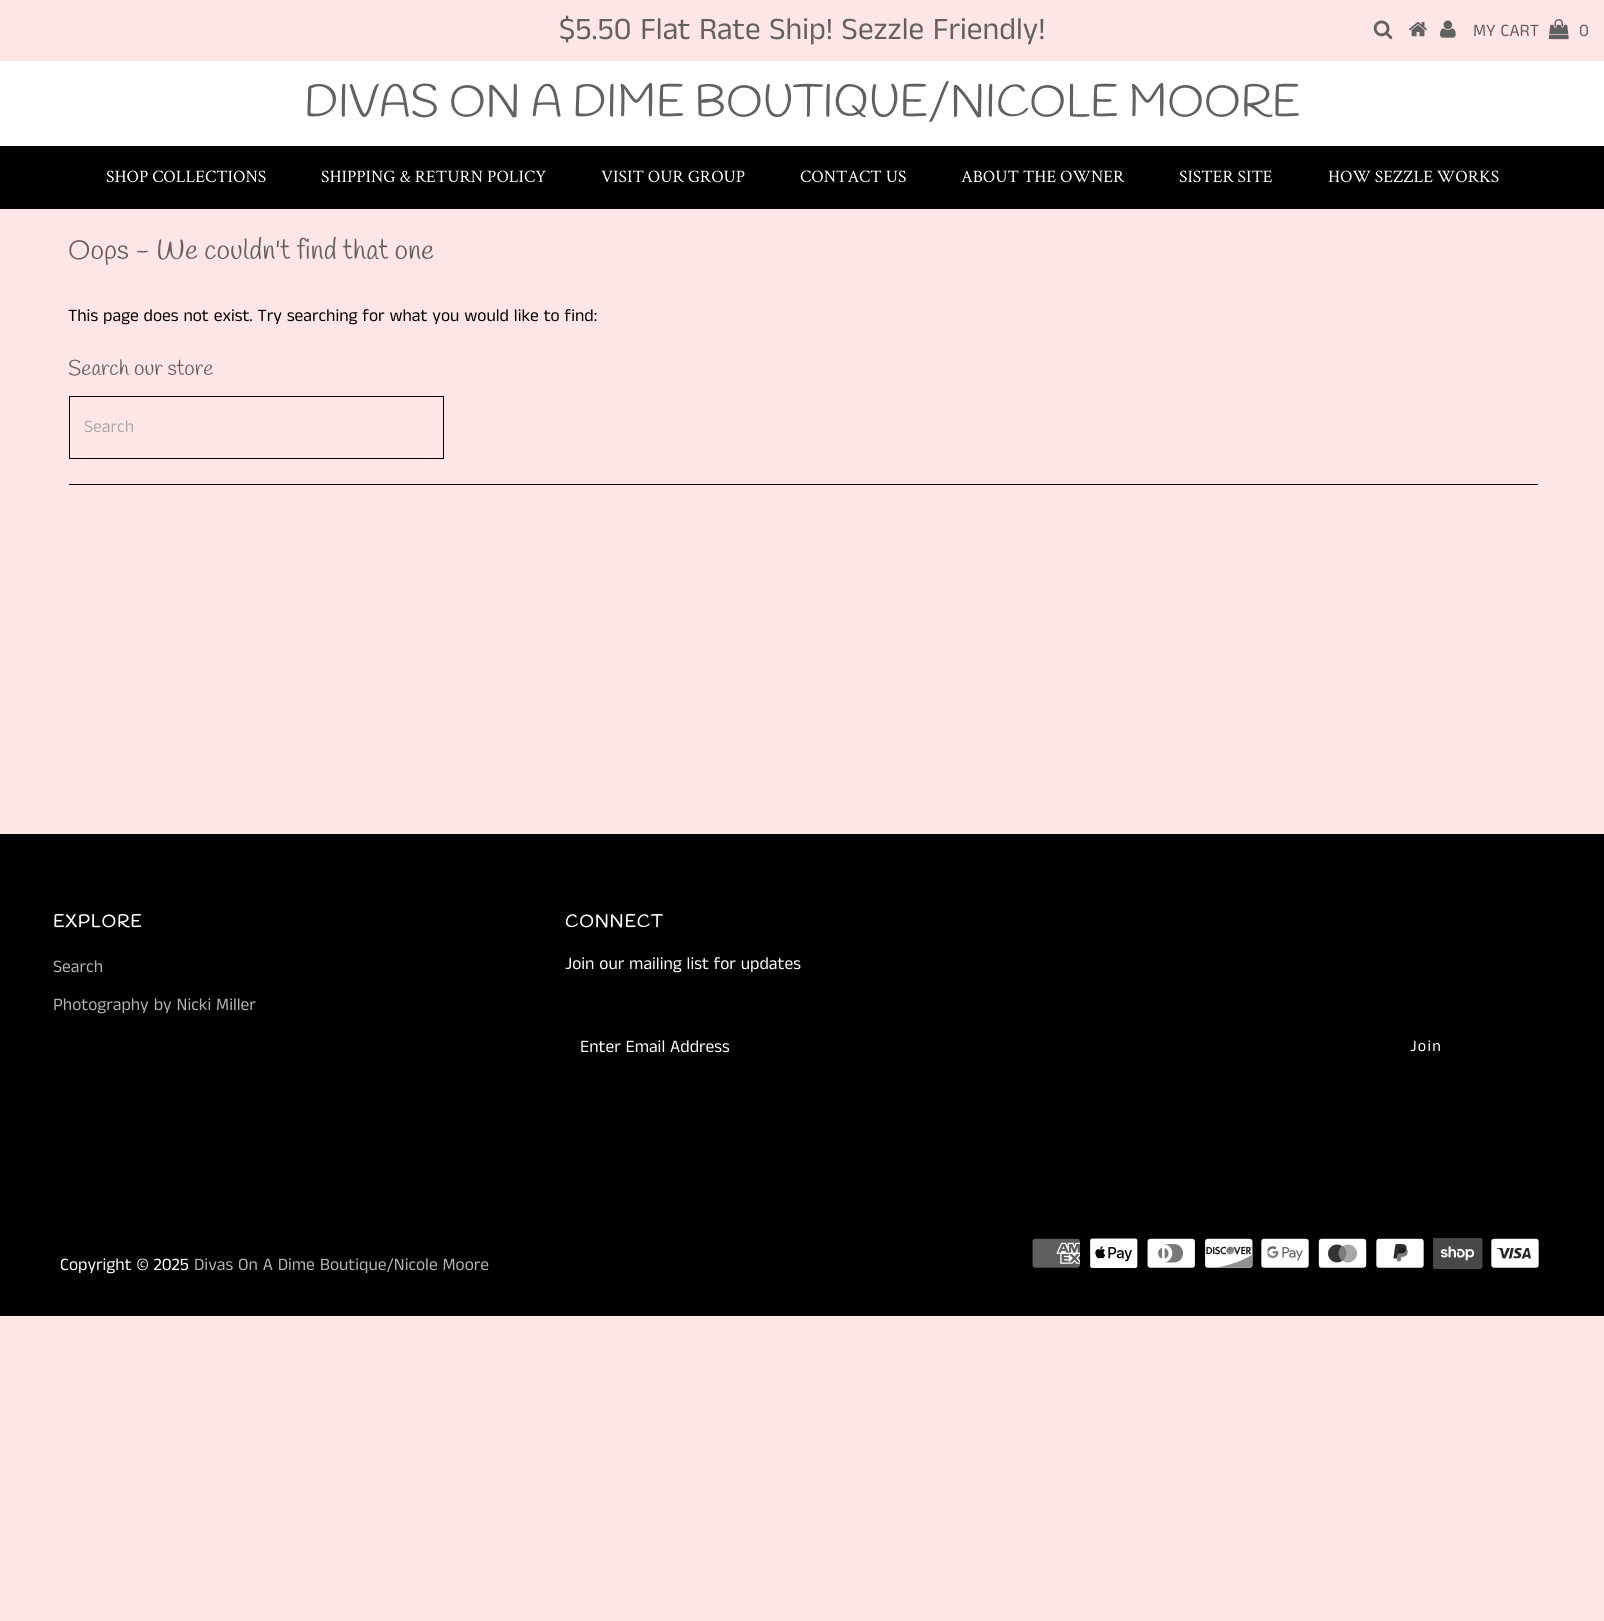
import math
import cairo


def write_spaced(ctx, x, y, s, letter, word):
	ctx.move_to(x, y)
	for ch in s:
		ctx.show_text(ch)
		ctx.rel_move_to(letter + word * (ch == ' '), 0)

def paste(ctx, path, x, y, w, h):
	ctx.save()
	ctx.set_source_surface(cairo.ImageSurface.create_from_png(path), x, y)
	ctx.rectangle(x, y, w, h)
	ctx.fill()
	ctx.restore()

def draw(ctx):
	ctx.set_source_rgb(1, 0.902, 0.902)
	ctx.paint()
	ctx.select_font_face('Anek Tamil')
	ctx.set_font_size(31.25)
	ctx.set_source_rgb(0.38, 0.38, 0.38)
	ctx.move_to(559, 39)
	ctx.show_text('$5.50 Flat Rate Ship! Sezzle Friendly!')
	paste(ctx, 'media/1.png', 1373, 20, 20, 20)
	paste(ctx, 'media/2.png', 1409, 21, 18, 16)
	paste(ctx, 'media/3.png', 1440, 20, 16, 18)
	ctx.set_font_size(17.5)
	ctx.move_to(1473, 36)
	ctx.show_text('MY CART')
	paste(ctx, 'media/4.png', 1548, 19, 21, 21)
	ctx.move_to(1579, 36)
	ctx.show_text('0')
	ctx.set_source_rgb(1, 1, 1)
	ctx.rectangle(0, 61, 1604, 85)
	ctx.fill()
	ctx.select_font_face('Handlee')
	ctx.set_font_size(45)
	ctx.set_source_rgb(0.38, 0.38, 0.38)
	ctx.move_to(304, 116)
	ctx.show_text('DIVAS ON A DIME BOUTIQUE/NICOLE MOORE')
	ctx.set_source_rgb(0, 0, 0)
	ctx.rectangle(0, 146, 1604, 63)
	ctx.fill()
	ctx.select_font_face('Crimson Text')
	ctx.set_font_size(17.5)
	ctx.set_source_rgb(1, 1, 1)
	for x, y, s in [
		(106, 182, 'SHOP COLLECTIONS'),
		(321, 182, 'SHIPPING & RETURN POLICY'),
		(601, 182, 'VISIT OUR GROUP'),
		(800, 182, 'CONTACT US'),
		(961, 182, 'ABOUT THE OWNER'),
		(1179, 182, 'SISTER SITE'),
		(1328, 182, 'HOW SEZZLE WORKS'),
	]:
		ctx.move_to(x, y)
		ctx.show_text(s)
	ctx.select_font_face('Handlee')
	ctx.set_font_size(27.5)
	ctx.set_source_rgb(0.38, 0.38, 0.38)
	ctx.move_to(68, 259)
	ctx.show_text('Oops - We couldn\'t find that one')
	ctx.select_font_face('Anek Tamil')
	ctx.set_font_size(17.5)
	ctx.set_source_rgb(0, 0, 0)
	ctx.move_to(68, 321)
	ctx.show_text('This page does not exist. Try searching for what you would like to find:')
	ctx.rectangle(69, 484, 1469, 1)
	ctx.fill()
	ctx.select_font_face('Handlee')
	ctx.set_font_size(21.25)
	ctx.set_source_rgb(0.38, 0.38, 0.38)
	ctx.move_to(68, 375)
	ctx.show_text('Search our store')
	ctx.rectangle(69.5, 396.5, 374, 62)
	ctx.set_source_rgb(0, 0, 0)
	ctx.set_line_width(1)
	ctx.stroke()
	ctx.select_font_face('Anek Tamil')
	ctx.set_font_size(17.5)
	ctx.set_source_rgb(0.667, 0.667, 0.667)
	ctx.move_to(84, 432)
	ctx.show_text('Search')
	ctx.set_source_rgb(0, 0, 0)
	ctx.rectangle(0, 834, 1604, 482)
	ctx.fill()
	ctx.select_font_face('Handlee', cairo.FONT_SLANT_NORMAL, cairo.FONT_WEIGHT_BOLD)
	ctx.set_source_rgb(1, 1, 1)
	write_spaced(ctx, 53, 927, 'EXPLORE', 1.25, 0)
	ctx.select_font_face('Anek Tamil')
	ctx.set_source_rgb(0.702, 0.702, 0.702)
	ctx.move_to(53, 972)
	ctx.show_text('Search')
	ctx.move_to(53, 1010)
	ctx.show_text('Photography by Nicki Miller')
	ctx.select_font_face('Handlee', cairo.FONT_SLANT_NORMAL, cairo.FONT_WEIGHT_BOLD)
	ctx.set_source_rgb(1, 1, 1)
	write_spaced(ctx, 565, 927, 'CONNECT', 1.25, 0)
	ctx.select_font_face('Anek Tamil')
	ctx.move_to(565, 969)
	ctx.show_text('Join our mailing list for updates')
	ctx.move_to(580, 1052)
	ctx.show_text('Enter Email Address')
	ctx.set_font_size(16)
	write_spaced(ctx, 1410, 1051, 'Join', 1.25, 0)
	ctx.set_font_size(17.5)
	ctx.move_to(60, 1270)
	ctx.show_text('Copyright © 2025')
	ctx.set_source_rgb(0.702, 0.702, 0.702)
	ctx.move_to(194, 1270)
	ctx.show_text('Divas On A Dime Boutique/Nicole Moore')
	paste(ctx, 'media/5.png', 1032, 1238, 48, 30)
	paste(ctx, 'media/6.png', 1090, 1238, 48, 30)
	paste(ctx, 'media/7.png', 1147, 1238, 48, 30)
	paste(ctx, 'media/8.png', 1205, 1238, 48, 30)
	paste(ctx, 'media/9.png', 1261, 1238, 48, 30)
	paste(ctx, 'media/10.png', 1318, 1238, 49, 30)
	paste(ctx, 'media/11.png', 1376, 1238, 48, 30)
	paste(ctx, 'media/12.png', 1433, 1238, 50, 32)
	paste(ctx, 'media/13.png', 1491, 1238, 48, 30)


surface = cairo.ImageSurface(cairo.FORMAT_RGB24, 1604, 1621)
ctx = cairo.Context(surface)
options = cairo.FontOptions()
options.set_hint_metrics(cairo.HINT_METRICS_OFF)
options.set_hint_style(cairo.HINT_STYLE_NONE)
ctx.set_font_options(options)
ctx.set_miter_limit(4)
draw(ctx)
surface.write_to_png('image.png')
